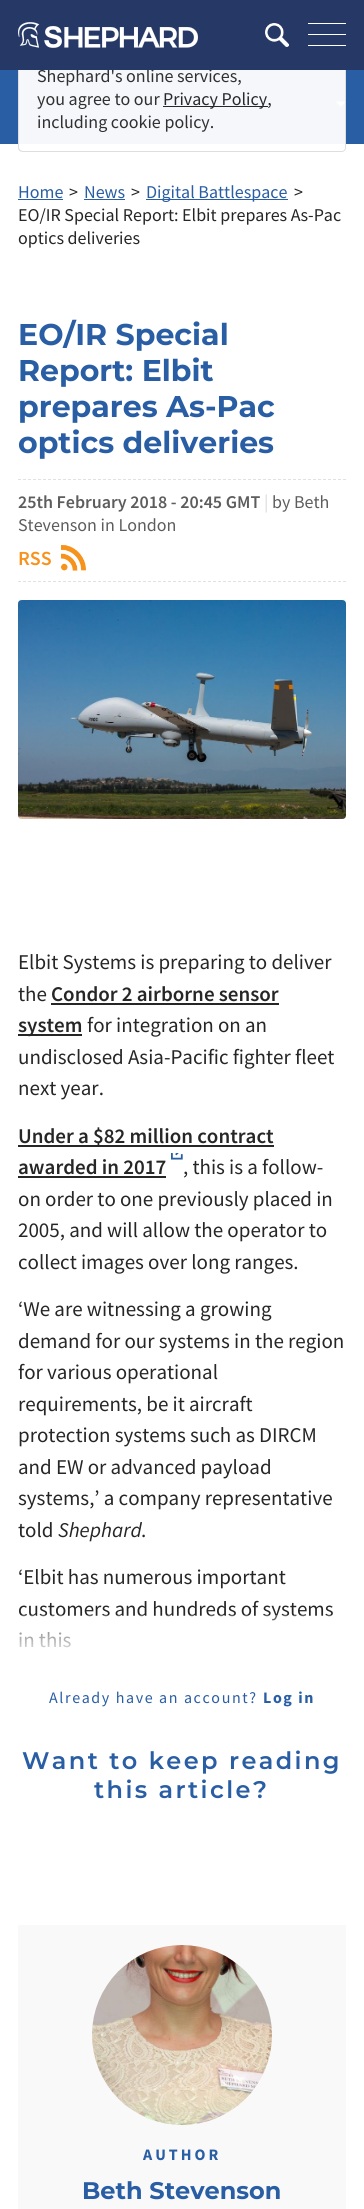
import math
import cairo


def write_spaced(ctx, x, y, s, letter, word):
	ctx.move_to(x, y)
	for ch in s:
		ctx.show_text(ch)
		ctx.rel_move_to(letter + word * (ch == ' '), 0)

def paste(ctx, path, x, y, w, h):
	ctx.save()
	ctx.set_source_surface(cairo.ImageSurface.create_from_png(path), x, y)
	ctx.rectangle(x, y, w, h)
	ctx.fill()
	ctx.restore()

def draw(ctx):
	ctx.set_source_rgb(1, 1, 1)
	ctx.paint()
	ctx.set_source_rgb(0.161, 0.365, 0.643)
	ctx.rectangle(0, 70, 364, 74)
	ctx.fill()
	paste(ctx, 'media/4.png', 336, 101, 10, 6)
	ctx.set_source_rgba(1, 1, 1, 0.95)
	ctx.new_path()
	ctx.move_to(18, 0)
	ctx.line_to(346, 0)
	ctx.line_to(346, 147)
	ctx.curve_to(346, 150, 344, 152, 341, 152)
	ctx.line_to(23, 152)
	ctx.curve_to(20, 152, 18, 150, 18, 147)
	ctx.close_path()
	ctx.fill()
	ctx.set_source_rgba(0.867, 0.867, 0.863, 0.95)
	ctx.set_fill_rule(cairo.FILL_RULE_EVEN_ODD)
	ctx.new_path()
	ctx.move_to(18, 0)
	ctx.line_to(346, 0)
	ctx.line_to(346, 148)
	ctx.curve_to(346, 150, 344, 152, 342, 152)
	ctx.line_to(23, 152)
	ctx.curve_to(20, 152, 18, 150, 18, 148)
	ctx.close_path()
	ctx.move_to(19, 0)
	ctx.line_to(345, 0)
	ctx.line_to(345, 148)
	ctx.curve_to(345, 149, 344, 151, 342, 151)
	ctx.line_to(23, 151)
	ctx.curve_to(21, 151, 19, 149, 19, 148)
	ctx.close_path()
	ctx.fill()
	ctx.select_font_face('Source Sans Pro')
	ctx.set_font_size(18)
	ctx.set_source_rgb(0.188, 0.188, 0.192)
	ctx.move_to(37, 82)
	ctx.show_text('Shephard\'s online services,')
	ctx.set_source_rgb(0.149, 0.22, 0.4)
	ctx.rectangle(0, 0, 364, 70)
	ctx.fill()
	paste(ctx, 'media/1.png', 18, 22, 180, 26)
	paste(ctx, 'media/2.png', 265, 23, 24, 24)
	paste(ctx, 'media/3.png', 308, 23, 38, 23)
	ctx.set_source_rgb(0.188, 0.188, 0.192)
	ctx.move_to(37, 105)
	ctx.show_text('you agree to our')
	ctx.set_source_rgb(0.149, 0.161, 0.173)
	ctx.rectangle(163, 106, 105, 1)
	ctx.fill()
	ctx.move_to(163, 105)
	ctx.show_text('Privacy Policy,')
	ctx.set_source_rgb(0.188, 0.188, 0.192)
	ctx.move_to(37, 128)
	ctx.show_text('including cookie policy.')
	ctx.set_source_rgb(0.161, 0.365, 0.643)
	ctx.move_to(18, 198)
	ctx.show_text('Home')
	ctx.rectangle(18, 199, 45, 1)
	ctx.fill()
	ctx.set_source_rgb(0.149, 0.149, 0.149)
	ctx.move_to(69, 198)
	ctx.show_text('>')
	ctx.set_source_rgb(0.161, 0.365, 0.643)
	ctx.move_to(84, 198)
	ctx.show_text('News')
	ctx.rectangle(84, 199, 41, 1)
	ctx.fill()
	ctx.set_source_rgb(0.149, 0.149, 0.149)
	ctx.move_to(131, 198)
	ctx.show_text('>')
	ctx.set_source_rgb(0.161, 0.365, 0.643)
	ctx.rectangle(146, 199, 142, 1)
	ctx.fill()
	ctx.move_to(146, 198)
	ctx.show_text('Digital Battlespace')
	ctx.set_source_rgb(0.149, 0.149, 0.149)
	for x, y, s in [
		(294, 198, '>'),
		(18, 221, 'EO/IR Special Report: Elbit prepares As-Pac'),
		(18, 244, 'optics deliveries'),
	]:
		ctx.move_to(x, y)
		ctx.show_text(s)
	ctx.select_font_face('Montserrat', cairo.FONT_SLANT_NORMAL, cairo.FONT_WEIGHT_BOLD)
	ctx.set_font_size(30)
	ctx.set_source_rgb(0.161, 0.365, 0.643)
	for x, y, s in [
		(18, 345, 'EO/IR Special'),
		(18, 381, 'Report: Elbit'),
		(18, 417, 'prepares As-Pac'),
		(18, 453, 'optics deliveries'),
	]:
		ctx.move_to(x, y)
		ctx.show_text(s)
	ctx.new_path()
	ctx.move_to(18, 479.5)
	ctx.line_to(346, 479.5)
	ctx.set_source_rgb(0.882, 0.882, 0.882)
	ctx.set_line_width(1)
	ctx.set_dash([3, 2])
	ctx.stroke()
	ctx.new_path()
	ctx.move_to(18, 581.5)
	ctx.line_to(346, 581.5)
	ctx.stroke()
	ctx.select_font_face('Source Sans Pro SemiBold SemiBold')
	ctx.set_font_size(18)
	ctx.set_source_rgb(0.365, 0.365, 0.365)
	ctx.move_to(18, 508)
	ctx.show_text('25th February 2018 - 20:45 GMT')
	ctx.select_font_face('Source Sans Pro')
	ctx.set_source_rgb(0.847, 0.847, 0.847)
	ctx.move_to(264, 508)
	ctx.show_text('|')
	ctx.set_source_rgb(0.365, 0.365, 0.365)
	ctx.move_to(272, 508)
	ctx.show_text('by Beth')
	ctx.move_to(18, 531)
	ctx.show_text('Stevenson in London')
	paste(ctx, 'media/5.png', 61, 545, 25, 26)
	ctx.select_font_face('Source Sans Pro SemiBold SemiBold')
	ctx.set_font_size(20)
	ctx.set_source_rgb(0.965, 0.576, 0.114)
	ctx.move_to(18, 565)
	ctx.show_text('RSS')
	paste(ctx, 'media/6.png', 18, 600, 328, 219)
	ctx.select_font_face('Source Sans Pro')
	ctx.set_font_size(21)
	ctx.set_source_rgb(0.149, 0.149, 0.149)
	ctx.move_to(18, 969)
	ctx.show_text('Elbit Systems is preparing to deliver')
	ctx.move_to(18, 1001)
	ctx.show_text('the')
	ctx.select_font_face('Source Sans Pro SemiBold SemiBold')
	ctx.move_to(51, 1001)
	ctx.show_text('Condor 2 airborne sensor')
	ctx.rectangle(51, 1003, 228, 2)
	ctx.fill()
	ctx.rectangle(18, 1034, 64, 2)
	ctx.fill()
	ctx.move_to(18, 1032)
	ctx.show_text('system')
	ctx.select_font_face('Source Sans Pro')
	for x, y, s in [
		(87, 1032, 'for integration on an'),
		(18, 1064, 'undisclosed Asia-Pacific fighter fleet'),
		(18, 1095, 'next year.'),
	]:
		ctx.move_to(x, y)
		ctx.show_text(s)
	ctx.rectangle(18, 1145, 256, 2)
	ctx.fill()
	ctx.select_font_face('Source Sans Pro SemiBold SemiBold')
	ctx.move_to(18, 1143)
	ctx.show_text('Under a $82 million contract')
	paste(ctx, 'media/7.png', 171, 1153, 12, 7)
	ctx.move_to(18, 1174)
	ctx.show_text('awarded in 2017')
	ctx.rectangle(18, 1176, 148, 2)
	ctx.fill()
	ctx.select_font_face('Source Sans Pro')
	for x, y, s in [
		(183, 1174, ', this is a follow-'),
		(18, 1206, 'on order to one previously placed in'),
		(18, 1237, '2005, and will allow the operator to'),
		(18, 1269, 'collect images over long ranges.'),
		(18, 1316, '‘We are witnessing a growing'),
		(18, 1348, 'demand for our systems in the region'),
		(18, 1379, 'for various operational'),
		(18, 1411, 'requirements, be it aircraft'),
		(18, 1442, 'protection systems such as DIRCM'),
		(18, 1474, 'and EW or advanced payload'),
		(18, 1505, 'systems,’ a company representative'),
		(18, 1537, 'told'),
	]:
		ctx.move_to(x, y)
		ctx.show_text(s)
	ctx.select_font_face('Source Sans Pro', cairo.FONT_SLANT_ITALIC)
	ctx.move_to(58, 1537)
	ctx.show_text('Shephard')
	ctx.select_font_face('Source Sans Pro')
	for x, y, s in [
		(141, 1537, '.'),
		(18, 1584, '‘Elbit has numerous important'),
		(18, 1616, 'customers and hundreds of systems'),
		(18, 1647, 'in this'),
	]:
		ctx.move_to(x, y)
		ctx.show_text(s)
	gradient = cairo.LinearGradient(182, 1615, 182, 1661)
	gradient.add_color_stop_rgba(0, 1, 1, 1, 0.25)
	gradient.add_color_stop_rgba(1, 1, 1, 1, 1)
	ctx.set_source(gradient)
	ctx.rectangle(19, 1615, 313, 33)
	ctx.fill()
	ctx.set_font_size(16)
	ctx.set_source_rgb(0.161, 0.365, 0.643)
	write_spaced(ctx, 49, 1703, 'Already have an account?', 1.6, 0)
	ctx.select_font_face('Source Sans Pro', cairo.FONT_SLANT_NORMAL, cairo.FONT_WEIGHT_BOLD)
	write_spaced(ctx, 263, 1703, 'Log in', 1.6, 0)
	ctx.select_font_face('Montserrat SemiBold')
	ctx.set_font_size(24)
	write_spaced(ctx, 22, 1769, 'Want to keep reading', 2.4, 0)
	write_spaced(ctx, 94, 1798, 'this article?', 2.4, 0)
	ctx.set_source_rgb(0.973, 0.973, 0.973)
	ctx.rectangle(18, 1925, 328, 284)
	ctx.fill()
	paste(ctx, 'media/8.png', 92, 1945, 180, 180)
	ctx.select_font_face('Source Sans Pro', cairo.FONT_SLANT_NORMAL, cairo.FONT_WEIGHT_BOLD)
	ctx.set_font_size(16)
	ctx.set_source_rgb(0.161, 0.365, 0.643)
	write_spaced(ctx, 143, 2160, 'AUTHOR', 3, 0)
	ctx.select_font_face('Montserrat', cairo.FONT_SLANT_NORMAL, cairo.FONT_WEIGHT_BOLD)
	ctx.set_font_size(24)
	ctx.move_to(82, 2199)
	ctx.show_text('Beth Stevenson')


surface = cairo.ImageSurface(cairo.FORMAT_RGB24, 364, 2209)
ctx = cairo.Context(surface)
options = cairo.FontOptions()
options.set_hint_metrics(cairo.HINT_METRICS_OFF)
options.set_hint_style(cairo.HINT_STYLE_NONE)
ctx.set_font_options(options)
ctx.set_miter_limit(4)
draw(ctx)
surface.write_to_png('image.png')
